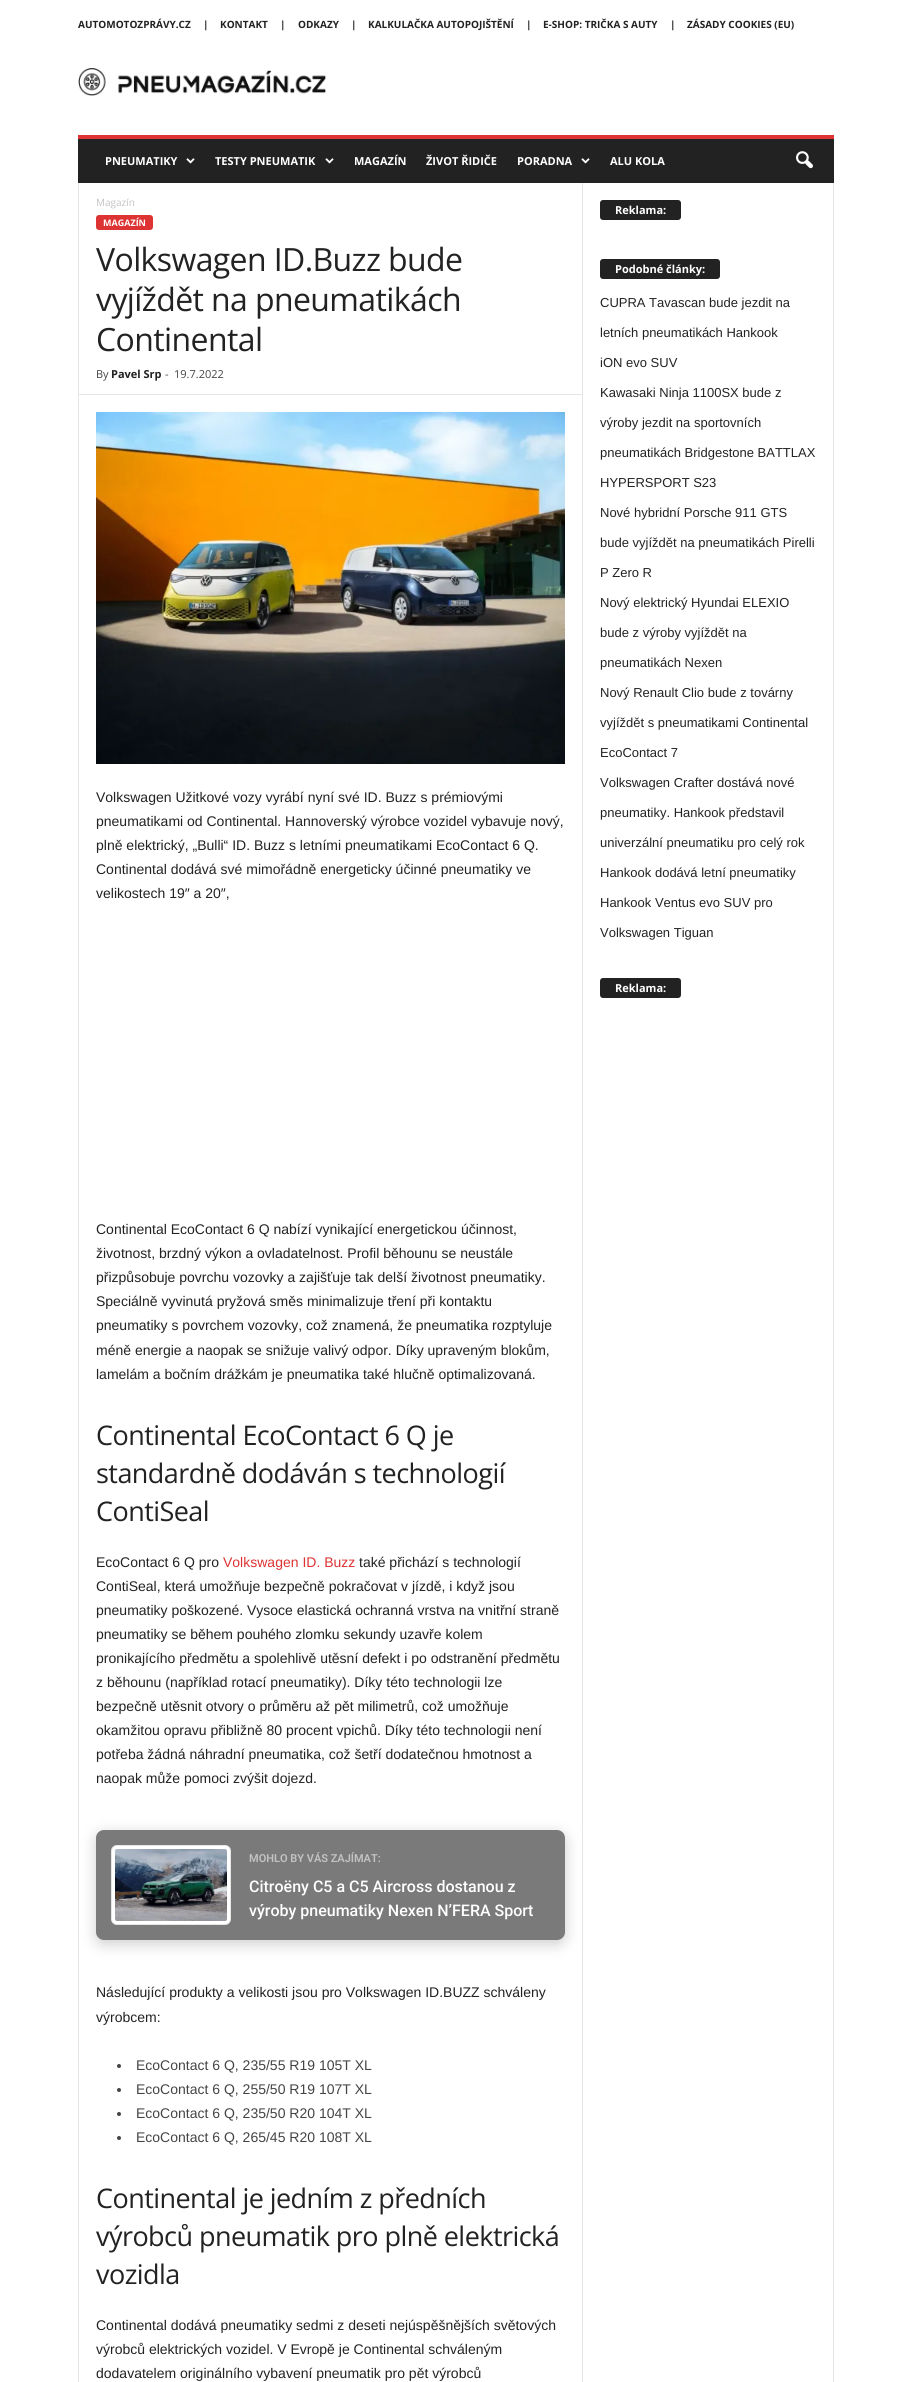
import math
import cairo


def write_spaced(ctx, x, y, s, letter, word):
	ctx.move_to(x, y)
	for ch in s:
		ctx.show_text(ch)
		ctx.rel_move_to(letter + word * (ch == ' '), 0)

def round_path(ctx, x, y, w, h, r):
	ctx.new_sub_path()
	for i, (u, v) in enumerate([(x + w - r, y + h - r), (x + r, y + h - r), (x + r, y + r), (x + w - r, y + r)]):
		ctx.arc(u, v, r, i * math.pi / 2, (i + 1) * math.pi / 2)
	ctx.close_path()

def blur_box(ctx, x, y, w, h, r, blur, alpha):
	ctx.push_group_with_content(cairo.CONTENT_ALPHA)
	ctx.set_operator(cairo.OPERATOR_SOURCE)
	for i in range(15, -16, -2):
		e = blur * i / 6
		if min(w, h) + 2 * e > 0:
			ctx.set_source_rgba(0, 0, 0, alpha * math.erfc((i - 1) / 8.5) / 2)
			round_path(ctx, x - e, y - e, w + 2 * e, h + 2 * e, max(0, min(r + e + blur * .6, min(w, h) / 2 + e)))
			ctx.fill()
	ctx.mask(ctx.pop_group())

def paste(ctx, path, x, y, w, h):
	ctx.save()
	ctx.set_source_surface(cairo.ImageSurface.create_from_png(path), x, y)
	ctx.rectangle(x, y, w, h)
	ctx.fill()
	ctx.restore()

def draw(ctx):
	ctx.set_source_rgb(1, 1, 1)
	ctx.paint()
	ctx.select_font_face('Open Sans', cairo.FONT_SLANT_NORMAL, cairo.FONT_WEIGHT_BOLD)
	ctx.set_font_size(10)
	ctx.set_source_rgb(0.133, 0.133, 0.133)
	for x, y, s in [
		(78, 28, 'AUTOMOTOZPRÁVY.CZ'),
		(203, 28, '|'),
		(220, 28, 'KONTAKT'),
		(280, 28, '|'),
		(298, 28, 'ODKAZY'),
		(351, 28, '|'),
		(368, 28, 'KALKULAČKA AUTOPOJIŠTĚNÍ'),
		(526, 28, '|'),
		(543, 28, 'E-SHOP: TRIČKA S AUTY'),
		(670, 28, '|'),
		(687, 28, 'ZÁSADY COOKIES (EU)'),
	]:
		ctx.move_to(x, y)
		ctx.show_text(s)
	paste(ctx, 'media/1.png', 78, 68, 248, 28)
	ctx.rectangle(78, 139, 756, 44)
	ctx.fill()
	ctx.set_source_rgb(0.867, 0.2, 0.2)
	ctx.rectangle(78, 135, 756, 4)
	ctx.fill()
	ctx.set_font_size(11)
	ctx.set_source_rgb(1, 1, 1)
	ctx.move_to(105, 165)
	ctx.show_text('PNEUMATIKY')
	paste(ctx, 'media/2.png', 186, 158, 9, 6)
	ctx.move_to(215, 165)
	ctx.show_text('TESTY PNEUMATIK')
	paste(ctx, 'media/2.png', 325, 158, 9, 6)
	for x, y, s in [
		(354, 165, 'MAGAZÍN'),
		(426, 165, 'ŽIVOT ŘIDIČE'),
		(517, 165, 'PORADNA'),
	]:
		ctx.move_to(x, y)
		ctx.show_text(s)
	paste(ctx, 'media/2.png', 581, 158, 9, 6)
	ctx.move_to(610, 165)
	ctx.show_text('ALU KOLA')
	paste(ctx, 'media/3.png', 796, 151, 17, 18)
	ctx.set_source_rgb(0.902, 0.902, 0.902)
	ctx.rectangle(78, 183, 1, 2199)
	ctx.fill()
	ctx.select_font_face('Open Sans')
	ctx.set_font_size(10)
	ctx.set_source_rgb(0.765, 0.765, 0.765)
	ctx.move_to(96, 206)
	ctx.show_text('Magazín')
	ctx.set_source_rgb(0.867, 0.2, 0.2)
	round_path(ctx, 96, 215, 57, 15, 3)
	ctx.fill()
	ctx.select_font_face('Open Sans', cairo.FONT_SLANT_NORMAL, cairo.FONT_WEIGHT_BOLD)
	ctx.set_font_size(9)
	ctx.set_source_rgb(1, 1, 1)
	ctx.move_to(103, 226)
	ctx.show_text('MAGAZÍN')
	ctx.select_font_face('Open Sans')
	ctx.set_font_size(32)
	ctx.set_source_rgb(0.133, 0.133, 0.133)
	for x, y, s in [
		(96, 271, 'Volkswagen ID.Buzz bude'),
		(96, 311, 'vyjíždět na pneumatikách'),
		(96, 351, 'Continental'),
	]:
		write_spaced(ctx, x, y, s, -0.6, 0)
	ctx.set_font_size(11)
	ctx.set_source_rgb(0.267, 0.267, 0.267)
	ctx.move_to(96, 378)
	ctx.show_text('By')
	ctx.select_font_face('Open Sans', cairo.FONT_SLANT_NORMAL, cairo.FONT_WEIGHT_BOLD)
	ctx.set_source_rgb(0.133, 0.133, 0.133)
	ctx.move_to(111, 378)
	ctx.show_text('Pavel Srp')
	ctx.select_font_face('Open Sans')
	ctx.set_source_rgb(0.267, 0.267, 0.267)
	ctx.move_to(165, 378)
	ctx.show_text('-')
	ctx.move_to(174, 378)
	ctx.show_text('19.7.2022')
	ctx.set_source_rgb(0.902, 0.902, 0.902)
	ctx.rectangle(79, 394, 503, 1)
	ctx.fill()
	paste(ctx, 'media/4.png', 96, 412, 469, 352)
	ctx.select_font_face('Liberation Sans')
	ctx.set_font_size(14)
	ctx.set_source_rgb(0.133, 0.133, 0.133)
	for x, y, s in [
		(96, 802, 'Volkswagen Užitkové vozy vyrábí nyní své ID. Buzz s prémiovými'),
		(96, 826, 'pneumatikami od Continental. Hannoverský výrobce vozidel vybavuje nový,'),
		(96, 850, 'plně elektrický, „Bulli“ ID. Buzz s letními pneumatikami EcoContact 6 Q.'),
		(96, 874, 'Continental dodává své mimořádně energeticky účinné pneumatiky ve'),
		(96, 898, 'velikostech 19″ a 20″,'),
		(96, 1234, 'Continental EcoContact 6 Q nabízí vynikající energetickou účinnost,'),
		(96, 1258, 'životnost, brzdný výkon a ovladatelnost. Profil běhounu se neustále'),
		(96, 1282, 'přizpůsobuje povrchu vozovky a zajišťuje tak delší životnost pneumatiky.'),
		(96, 1306, 'Speciálně vyvinutá pryžová směs minimalizuje tření při kontaktu'),
		(96, 1330, 'pneumatiky s povrchem vozovky, což znamená, že pneumatika rozptyluje'),
		(96, 1355, 'méně energie a naopak se snižuje valivý odpor. Díky upraveným blokům,'),
		(96, 1379, 'lamelám a bočním drážkám je pneumatika také hlučně optimalizovaná.'),
	]:
		ctx.move_to(x, y)
		ctx.show_text(s)
	ctx.select_font_face('Open Sans')
	ctx.set_font_size(27)
	for x, y, s in [
		(96, 1445, 'Continental EcoContact 6 Q je'),
		(96, 1483, 'standardně dodáván s technologií'),
		(96, 1521, 'ContiSeal'),
	]:
		write_spaced(ctx, x, y, s, -0.55, 0)
	ctx.select_font_face('Liberation Sans')
	ctx.set_font_size(14)
	ctx.move_to(96, 1567)
	ctx.show_text('EcoContact 6 Q pro')
	ctx.set_source_rgb(0.867, 0.2, 0.2)
	ctx.move_to(223, 1567)
	ctx.show_text('Volkswagen ID. Buzz')
	ctx.set_source_rgb(0.133, 0.133, 0.133)
	for x, y, s in [
		(359, 1567, 'také přichází s technologií'),
		(96, 1591, 'ContiSeal, která umožňuje bezpečně pokračovat v jízdě, i když jsou'),
		(96, 1615, 'pneumatiky poškozené. Vysoce elastická ochranná vrstva na vnitřní straně'),
		(96, 1639, 'pneumatiky se během pouhého zlomku sekundy uzavře kolem'),
		(96, 1663, 'pronikajícího předmětu a spolehlivě utěsní defekt i po odstranění předmětu'),
		(96, 1687, 'z běhounu (například rotací pneumatiky). Díky této technologii lze'),
		(96, 1711, 'bezpečně utěsnit otvory o průměru až pět milimetrů, což umožňuje'),
		(96, 1735, 'okamžitou opravu přibližně 80 procent vpichů. Díky této technologii není'),
		(96, 1759, 'potřeba žádná náhradní pneumatika, což šetří dodatečnou hmotnost a'),
		(96, 1783, 'naopak může pomoci zvýšit dojezd.'),
	]:
		ctx.move_to(x, y)
		ctx.show_text(s)
	ctx.set_source_rgb(0.902, 0.902, 0.902)
	ctx.rectangle(582, 183, 1, 2199)
	ctx.fill()
	ctx.set_source_rgb(0, 0, 0)
	blur_box(ctx, 96, 1834, 469, 110, 8, 7.5, 0.2)
	ctx.set_source_rgb(0.478, 0.478, 0.478)
	round_path(ctx, 96, 1830, 469, 110, 8)
	ctx.fill()
	ctx.set_source_rgb(1, 1, 1)
	round_path(ctx, 111, 1845, 120, 80, 6)
	ctx.fill()
	round_path(ctx, 111.5, 1845.5, 119, 79, 5.5)
	ctx.set_source_rgba(0, 0, 0, 0.1)
	ctx.set_line_width(1)
	ctx.stroke()
	paste(ctx, 'media/5.png', 115, 1849, 112, 72)
	ctx.select_font_face('Roboto SemiBold')
	ctx.set_font_size(11)
	ctx.set_source_rgb(0.765, 0.765, 0.765)
	ctx.move_to(249, 1862)
	ctx.show_text('MOHLO BY VÁS ZAJÍMAT:')
	ctx.select_font_face('Roboto Medium')
	ctx.set_font_size(16)
	ctx.set_source_rgb(1, 1, 1)
	ctx.move_to(249, 1892)
	ctx.show_text('Citroëny C5 a C5 Aircross dostanou z')
	ctx.move_to(249, 1916)
	ctx.show_text('výroby pneumatiky Nexen N’FERA Sport')
	ctx.select_font_face('Liberation Sans')
	ctx.set_font_size(14)
	ctx.set_source_rgb(0.133, 0.133, 0.133)
	ctx.move_to(96, 1997)
	ctx.show_text('Následující produkty a velikosti jsou pro Volkswagen ID.BUZZ schváleny')
	ctx.move_to(96, 2022)
	ctx.show_text('výrobcem:')
	ctx.set_source_rgb(0.267, 0.267, 0.267)
	ctx.new_path()
	ctx.arc(119, 2066, 2, 0, 2 * math.pi)
	ctx.fill()
	ctx.move_to(136, 2070)
	ctx.show_text('EcoContact 6 Q, 235/55 R19 105T XL')
	ctx.new_path()
	ctx.arc(119, 2090, 2, 0, 2 * math.pi)
	ctx.fill()
	ctx.move_to(136, 2094)
	ctx.show_text('EcoContact 6 Q, 255/50 R19 107T XL')
	ctx.new_path()
	ctx.arc(119, 2114, 2, 0, 2 * math.pi)
	ctx.fill()
	ctx.move_to(136, 2118)
	ctx.show_text('EcoContact 6 Q, 235/50 R20 104T XL')
	ctx.new_path()
	ctx.arc(119, 2138, 2, 0, 2 * math.pi)
	ctx.fill()
	ctx.move_to(136, 2142)
	ctx.show_text('EcoContact 6 Q, 265/45 R20 108T XL')
	ctx.select_font_face('Open Sans')
	ctx.set_font_size(27)
	ctx.set_source_rgb(0.133, 0.133, 0.133)
	for x, y, s in [
		(96, 2208, 'Continental je jedním z předních'),
		(96, 2246, 'výrobců pneumatik pro plně elektrická'),
		(96, 2284, 'vozidla'),
	]:
		write_spaced(ctx, x, y, s, -0.55, 0)
	ctx.select_font_face('Liberation Sans')
	ctx.set_font_size(14)
	for x, y, s in [
		(96, 2330, 'Continental dodává pneumatiky sedmi z deseti nejúspěšnějších světových'),
		(96, 2354, 'výrobců elektrických vozidel. V Evropě je Continental schváleným'),
		(96, 2378, 'dodavatelem originálního vybavení pneumatik pro pět výrobců'),
	]:
		ctx.move_to(x, y)
		ctx.show_text(s)
	round_path(ctx, 600, 200, 81, 20, 3)
	ctx.fill()
	ctx.select_font_face('Open Sans', cairo.FONT_SLANT_NORMAL, cairo.FONT_WEIGHT_BOLD)
	ctx.set_font_size(11)
	ctx.set_source_rgb(1, 1, 1)
	ctx.move_to(615, 214)
	ctx.show_text('Reklama:')
	ctx.set_source_rgb(0.133, 0.133, 0.133)
	round_path(ctx, 600, 259, 120, 20, 3)
	ctx.fill()
	ctx.set_source_rgb(1, 1, 1)
	ctx.move_to(615, 273)
	ctx.show_text('Podobné články:')
	ctx.select_font_face('Liberation Sans')
	ctx.set_font_size(13)
	ctx.set_source_rgb(0.133, 0.133, 0.133)
	for x, y, s in [
		(600, 307, 'CUPRA Tavascan bude jezdit na'),
		(600, 337, 'letních pneumatikách Hankook'),
		(600, 367, 'iON evo SUV'),
		(600, 397, 'Kawasaki Ninja 1100SX bude z'),
		(600, 427, 'výroby jezdit na sportovních'),
		(600, 457, 'pneumatikách Bridgestone BATTLAX'),
		(600, 487, 'HYPERSPORT S23'),
		(600, 517, 'Nové hybridní Porsche 911 GTS'),
		(600, 547, 'bude vyjíždět na pneumatikách Pirelli'),
		(600, 577, 'P Zero R'),
		(600, 607, 'Nový elektrický Hyundai ELEXIO'),
		(600, 637, 'bude z výroby vyjíždět na'),
		(600, 667, 'pneumatikách Nexen'),
		(600, 697, 'Nový Renault Clio bude z továrny'),
		(600, 727, 'vyjíždět s pneumatikami Continental'),
		(600, 757, 'EcoContact 7'),
		(600, 787, 'Volkswagen Crafter dostává nové'),
		(600, 817, 'pneumatiky. Hankook představil'),
		(600, 847, 'univerzální pneumatiku pro celý rok'),
		(600, 877, 'Hankook dodává letní pneumatiky'),
		(600, 907, 'Hankook Ventus evo SUV pro'),
		(600, 937, 'Volkswagen Tiguan'),
	]:
		ctx.move_to(x, y)
		ctx.show_text(s)
	round_path(ctx, 600, 978, 81, 20, 3)
	ctx.fill()
	ctx.select_font_face('Open Sans', cairo.FONT_SLANT_NORMAL, cairo.FONT_WEIGHT_BOLD)
	ctx.set_font_size(11)
	ctx.set_source_rgb(1, 1, 1)
	ctx.move_to(615, 992)
	ctx.show_text('Reklama:')
	ctx.set_source_rgb(0.902, 0.902, 0.902)
	ctx.rectangle(833, 183, 1, 2199)
	ctx.fill()


surface = cairo.ImageSurface(cairo.FORMAT_RGB24, 912, 2382)
ctx = cairo.Context(surface)
options = cairo.FontOptions()
options.set_hint_metrics(cairo.HINT_METRICS_OFF)
options.set_hint_style(cairo.HINT_STYLE_NONE)
ctx.set_font_options(options)
ctx.set_miter_limit(4)
draw(ctx)
surface.write_to_png('image.png')
